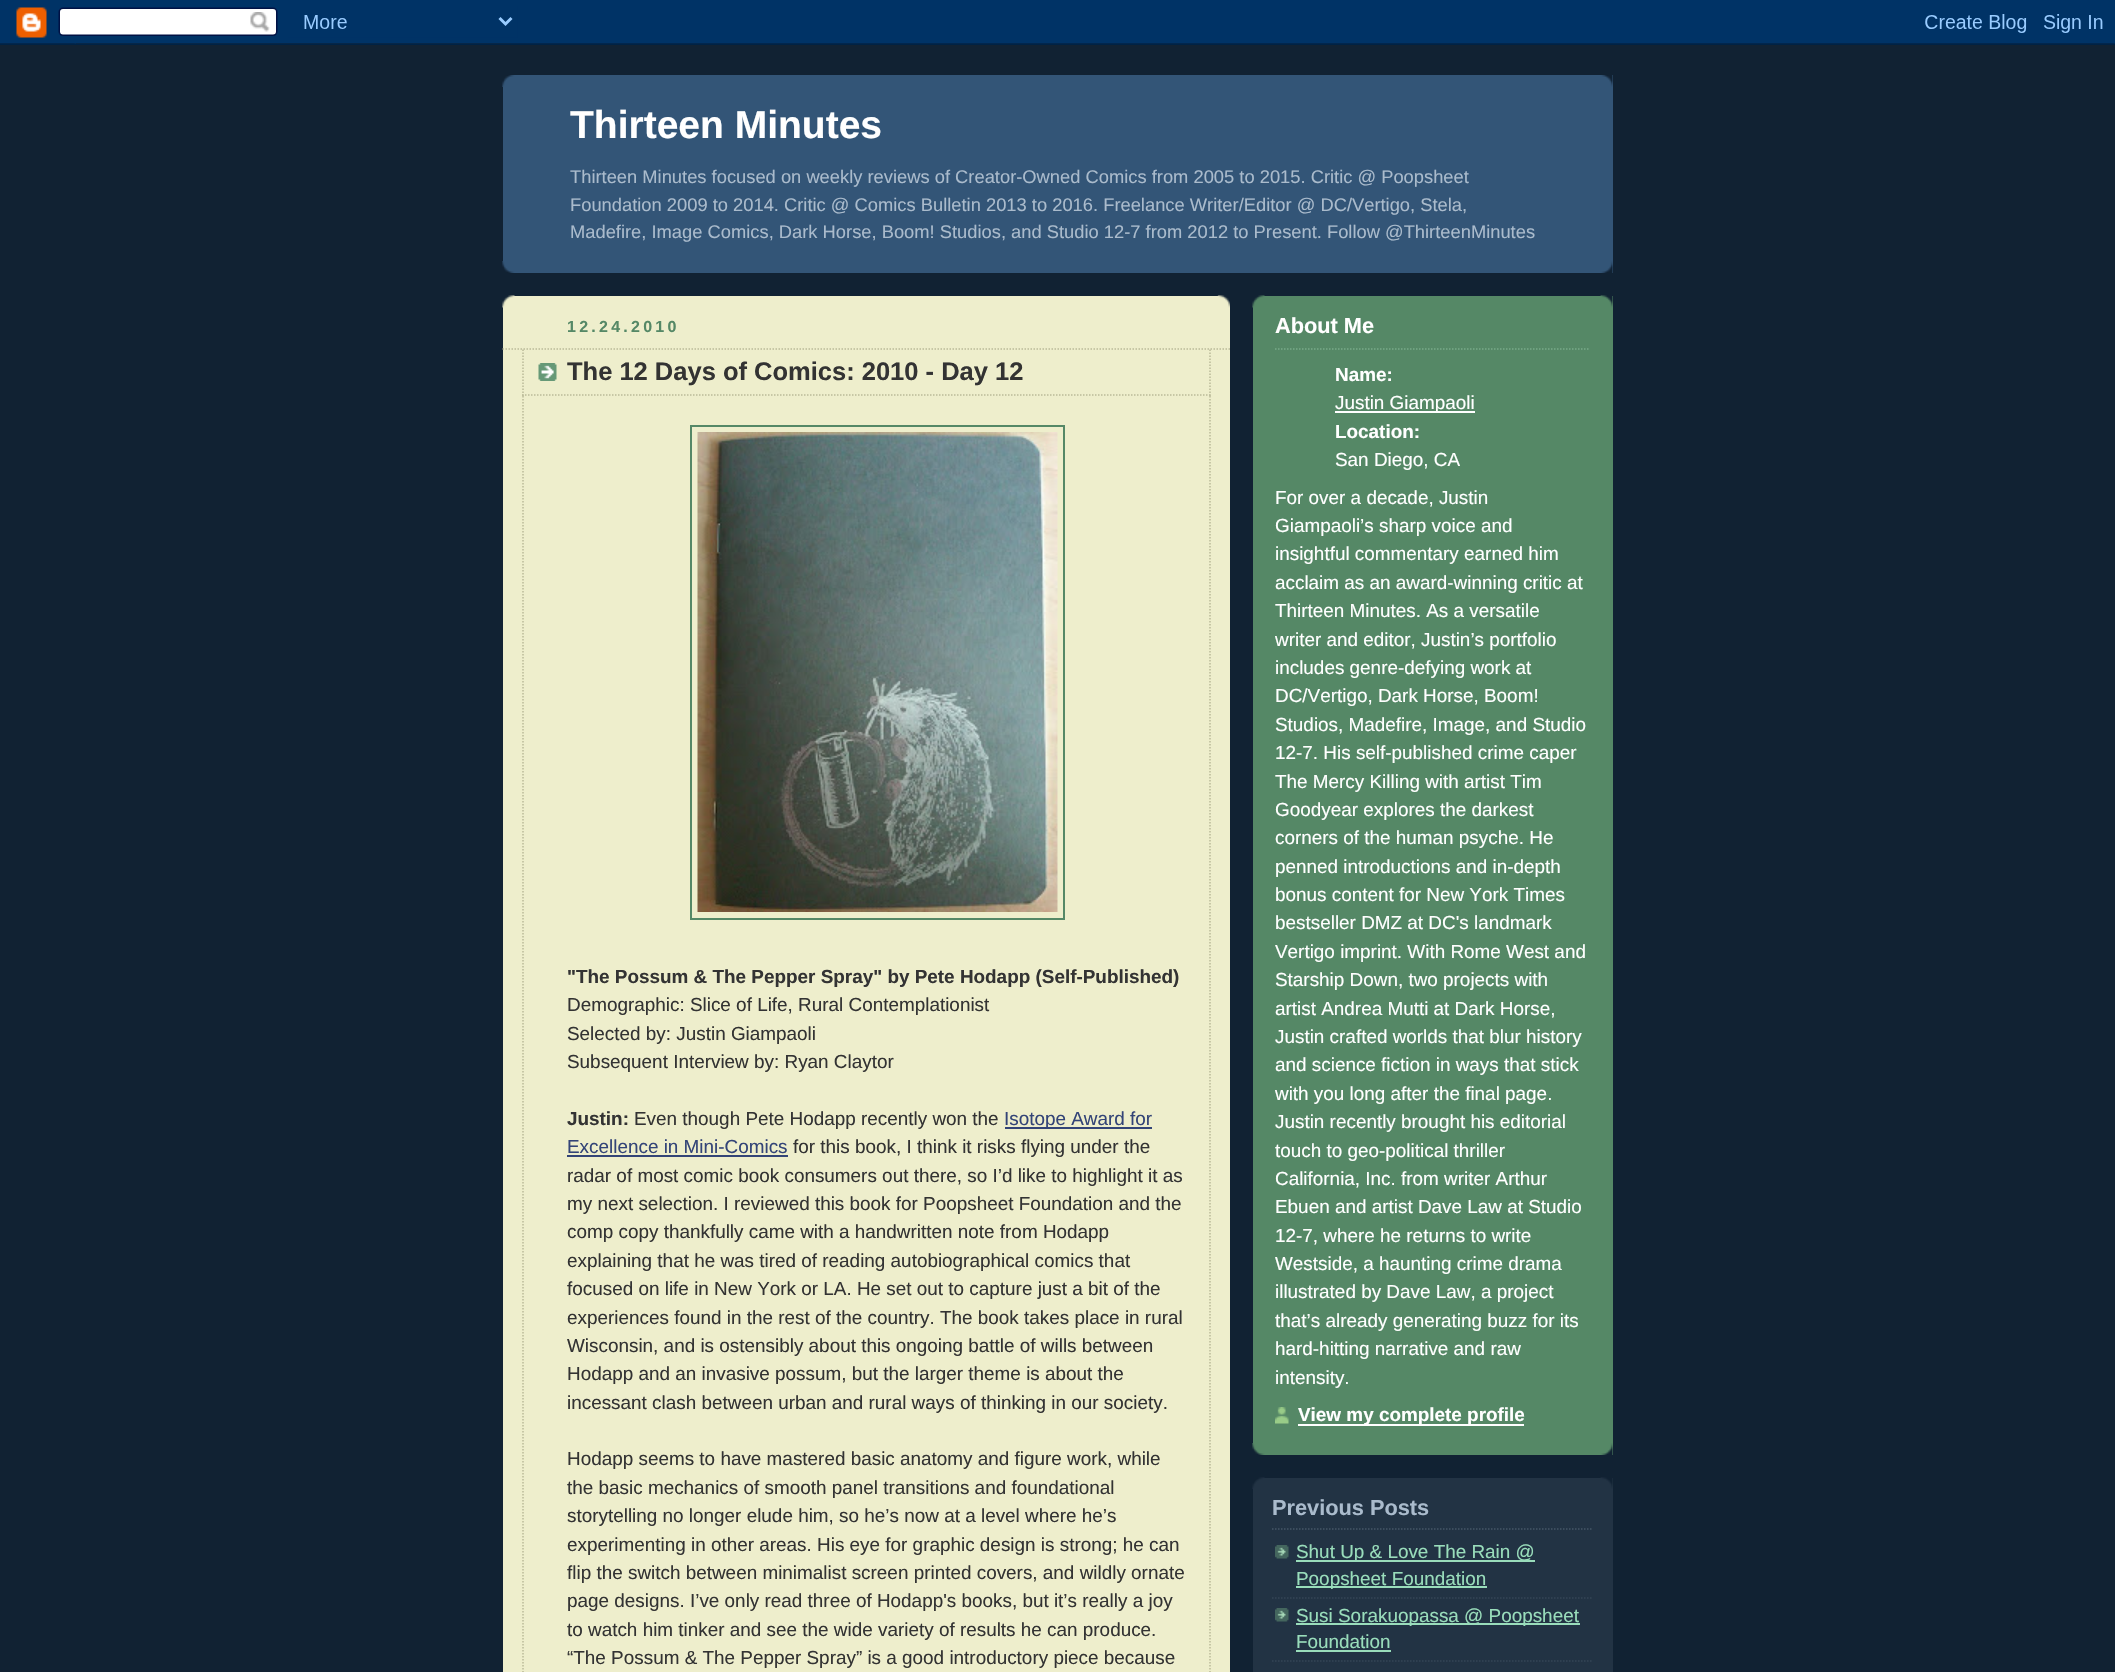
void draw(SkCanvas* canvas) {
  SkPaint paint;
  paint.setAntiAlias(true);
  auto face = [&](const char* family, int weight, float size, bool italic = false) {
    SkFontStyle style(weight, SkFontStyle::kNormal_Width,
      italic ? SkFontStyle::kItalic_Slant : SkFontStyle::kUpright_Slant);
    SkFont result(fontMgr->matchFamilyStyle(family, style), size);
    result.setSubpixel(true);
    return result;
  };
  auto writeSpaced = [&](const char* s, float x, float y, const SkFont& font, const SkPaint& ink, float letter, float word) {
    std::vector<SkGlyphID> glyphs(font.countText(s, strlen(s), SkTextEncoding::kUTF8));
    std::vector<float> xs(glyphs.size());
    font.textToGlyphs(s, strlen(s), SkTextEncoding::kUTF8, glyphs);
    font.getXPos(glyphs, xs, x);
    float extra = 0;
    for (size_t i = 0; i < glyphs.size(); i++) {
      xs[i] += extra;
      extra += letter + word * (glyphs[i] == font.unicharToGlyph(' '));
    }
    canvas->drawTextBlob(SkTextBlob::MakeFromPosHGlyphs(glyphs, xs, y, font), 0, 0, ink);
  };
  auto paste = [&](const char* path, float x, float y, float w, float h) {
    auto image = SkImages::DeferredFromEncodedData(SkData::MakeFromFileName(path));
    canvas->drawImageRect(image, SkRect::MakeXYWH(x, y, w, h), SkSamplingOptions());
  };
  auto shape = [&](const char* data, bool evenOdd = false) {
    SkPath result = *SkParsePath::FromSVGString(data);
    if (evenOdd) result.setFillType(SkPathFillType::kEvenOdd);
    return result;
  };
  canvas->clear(0xff112233);
  paste("img/1.png", 0, 0, 2115, 45);
  paint.setColor(0xff335577);
  canvas->drawRect(SkRect::MakeXYWH(503, 75, 1110, 198), paint);
  paste("img/2.png", 502, 261, 1111, 12);
  paste("img/3.png", 502, 75, 1111, 12);
  paint.setColor(0xffeeeecc);
  canvas->drawRect(SkRect::MakeXYWH(503, 296, 727, 1376), paint);
  paste("img/4.png", 502, 295, 728, 13);
  paint.setStroke(true);
  paint.setStrokeWidth(1.5f);
  paint.setColor(0xffbbbb99);
  paint.setPathEffect(SkDashPathEffect::Make({{1.5f, 1.5f}}, 0));
  canvas->drawPath(shape("M502.5 349H1230"), paint);
  paint.setPathEffect(nullptr);
  paste("img/5.png", 538, 363, 19, 18);
  paint.setPathEffect(SkDashPathEffect::Make({{1.5f, 1.5f}}, 0));
  canvas->drawPath(shape("M1210 349.5V396"), paint);
  paint.setPathEffect(nullptr);
  paint.setPathEffect(SkDashPathEffect::Make({{1.5f, 1.5f}}, 0));
  canvas->drawPath(shape("M522 395H1210.5"), paint);
  paint.setPathEffect(nullptr);
  paint.setPathEffect(SkDashPathEffect::Make({{1.5f, 1.5f}}, 0));
  canvas->drawPath(shape("M523 349.5V396"), paint);
  paint.setPathEffect(nullptr);
  paint.setPathEffect(SkDashPathEffect::Make({{1.5f, 1.5f}}, 0));
  canvas->drawPath(shape("M1210 396V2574"), paint);
  paint.setPathEffect(nullptr);
  paint.setPathEffect(SkDashPathEffect::Make({{1.5f, 1.5f}}, 0));
  canvas->drawPath(shape("M523 396V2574"), paint);
  paint.setPathEffect(nullptr);
  paint.setStrokeWidth(2);
  paint.setColor(0xff558866);
  canvas->drawRect(SkRect::MakeXYWH(691, 426, 373, 493), paint);
  paste("img/6.png", 697, 432, 361, 480);
  paint.setStroke(false);
  {
    const struct { float x, y, w, h; SkColor color; } items[] = {
      {1005, 1127, 147, 2, 0xff334477},
      {567, 1155, 221, 2, 0xff334477},
      {1253, 296, 360, 1159, 0xff558866},
    };
    for (auto [x, y, w, h, color] : items) {
      paint.setColor(color);
      canvas->drawRect(SkRect::MakeXYWH(x, y, w, h), paint);
    }
  }
  paste("img/7.png", 1252, 1443, 361, 12);
  paste("img/8.png", 1252, 295, 361, 13);
  paint.setStroke(true);
  paint.setStrokeWidth(1.5f);
  paint.setColor(0xff77aa88);
  paint.setPathEffect(SkDashPathEffect::Make({{1.5f, 1.5f}}, 0));
  canvas->drawPath(shape("M1275 349H1590"), paint);
  paint.setPathEffect(nullptr);
  paint.setStroke(false);
  paint.setColor(0xffffffff);
  canvas->drawRect(SkRect::MakeXYWH(1335, 411, 140, 2), paint);
  paste("img/9.png", 1275, 1407, 14, 17);
  canvas->drawRect(SkRect::MakeXYWH(1298, 1424, 226, 2), paint);
  paint.setColor(0xff223344);
  canvas->drawRect(SkRect::MakeXYWH(1253, 1478, 360, 194), paint);
  paste("img/10.png", 1252, 1477, 361, 12);
  paint.setStroke(true);
  paint.setColor(0xff445566);
  paint.setPathEffect(SkDashPathEffect::Make({{1.5f, 1.5f}}, 0));
  canvas->drawPath(shape("M1272 1529H1593"), paint);
  paint.setPathEffect(nullptr);
  paste("img/11.png", 1275, 1545, 14, 14);
  paint.setColor(0xff334455);
  paint.setPathEffect(SkDashPathEffect::Make({{1.5f, 1.5f}}, 0));
  canvas->drawPath(shape("M1272 1598H1593"), paint);
  paint.setPathEffect(nullptr);
  paint.setStroke(false);
  paint.setColor(0xff99ddbb);
  canvas->drawRect(SkRect::MakeXYWH(1296, 1560, 239, 2), paint);
  canvas->drawRect(SkRect::MakeXYWH(1296, 1586, 191, 2), paint);
  paste("img/11.png", 1275, 1608, 14, 14);
  paint.setStroke(true);
  paint.setColor(0xff334455);
  paint.setPathEffect(SkDashPathEffect::Make({{1.5f, 1.5f}}, 0));
  canvas->drawPath(shape("M1272 1661H1593"), paint);
  paint.setPathEffect(nullptr);
  paint.setStroke(false);
  paint.setColor(0xff99ddbb);
  canvas->drawRect(SkRect::MakeXYWH(1296, 1623, 284, 2), paint);
  canvas->drawRect(SkRect::MakeXYWH(1296, 1650, 95, 2), paint);
  auto f0 = face("Liberation Sans", 700, 39);
  paint.setColor(0xffffffff);
  canvas->drawString("Thirteen Minutes", 570, 138, f0, paint);
  auto f1 = face("Liberation Sans", 400, 18.33f);
  paint.setColor(0xffaabbcc);
  {
    const struct { const char* s; float x, y; } items[] = {
      {"Thirteen Minutes focused on weekly reviews of Creator-Owned Comics from 2005 to 2015. Critic @ Poopsheet", 570, 183},
      {"Foundation 2009 to 2014. Critic @ Comics Bulletin 2013 to 2016. Freelance Writer/Editor @ DC/Vertigo, Stela,", 570, 211},
      {"Madefire, Image Comics, Dark Horse, Boom! Studios, and Studio 12-7 from 2012 to Present. Follow @ThirteenMinutes", 570, 238},
    };
    for (auto [s, x, y] : items) {
      canvas->drawString(s, x, y, f1, paint);
    }
  }
  auto f2 = face("Liberation Sans", 700, 16);
  paint.setColor(0xff558866);
  writeSpaced("12.24.2010", 567, 332, f2, paint, 3.25f, 0);
  auto f3 = face("Liberation Sans", 700, 25.5f);
  paint.setColor(0xff333333);
  canvas->drawString("The 12 Days of Comics: 2010 - Day 12", 567, 380, f3, paint);
  auto f4 = face("Liberation Sans", 700, 18.9f);
  canvas->drawString("\"The Possum & The Pepper Spray\" by Pete Hodapp (Self-Published)", 567, 983, f4, paint);
  auto f5 = face("Liberation Sans", 400, 18.9f);
  {
    const struct { const char* s; float x, y; } items[] = {
      {"Demographic: Slice of Life, Rural Contemplationist", 567, 1011},
      {"Selected by: Justin Giampaoli", 567, 1040},
      {"Subsequent Interview by: Ryan Claytor", 567, 1068},
    };
    for (auto [s, x, y] : items) {
      canvas->drawString(s, x, y, f5, paint);
    }
  }
  canvas->drawString("Justin:", 567, 1125, f4, paint);
  canvas->drawString("Even though Pete Hodapp recently won the", 634, 1125, f5, paint);
  paint.setColor(0xff334477);
  canvas->drawString("Isotope Award for", 1004, 1125, f5, paint);
  canvas->drawString("Excellence in Mini-Comics", 567, 1153, f5, paint);
  paint.setColor(0xff333333);
  {
    const struct { const char* s; float x, y; } items[] = {
      {"for this book, I think it risks flying under the", 793, 1153},
      {"radar of most comic book consumers out there, so I’d like to highlight it as", 567, 1182},
      {"my next selection. I reviewed this book for Poopsheet Foundation and the", 567, 1210},
      {"comp copy thankfully came with a handwritten note from Hodapp", 567, 1238},
      {"explaining that he was tired of reading autobiographical comics that", 567, 1267},
      {"focused on life in New York or LA. He set out to capture just a bit of the", 567, 1295},
      {"experiences found in the rest of the country. The book takes place in rural", 567, 1324},
      {"Wisconsin, and is ostensibly about this ongoing battle of wills between", 567, 1352},
      {"Hodapp and an invasive possum, but the larger theme is about the", 567, 1380},
      {"incessant clash between urban and rural ways of thinking in our society.", 567, 1409},
      {"Hodapp seems to have mastered basic anatomy and figure work, while", 567, 1465},
      {"the basic mechanics of smooth panel transitions and foundational", 567, 1494},
      {"storytelling no longer elude him, so he’s now at a level where he’s", 567, 1522},
      {"experimenting in other areas. His eye for graphic design is strong; he can", 567, 1551},
      {"flip the switch between minimalist screen printed covers, and wildly ornate", 567, 1579},
      {"page designs. I’ve only read three of Hodapp's books, but it’s really a joy", 567, 1607},
      {"to watch him tinker and see the wide variety of results he can produce.", 567, 1636},
      {"“The Possum & The Pepper Spray” is a good introductory piece because", 567, 1664},
    };
    for (auto [s, x, y] : items) {
      canvas->drawString(s, x, y, f5, paint);
    }
  }
  auto f6 = face("Liberation Sans", 700, 21.75f);
  paint.setColor(0xffffffff);
  canvas->drawString("About Me", 1275, 333, f6, paint);
  canvas->drawString("Name:", 1335, 381, f4, paint);
  canvas->drawString("Justin Giampaoli", 1335, 409, f5, paint);
  canvas->drawString("Location:", 1335, 438, f4, paint);
  {
    const struct { const char* s; float x, y; } items[] = {
      {"San Diego, CA", 1335, 466},
      {"For over a decade, Justin", 1275, 504},
      {"Giampaoli’s sharp voice and", 1275, 532},
      {"insightful commentary earned him", 1275, 560},
      {"acclaim as an award-winning critic at", 1275, 589},
      {"Thirteen Minutes. As a versatile", 1275, 617},
      {"writer and editor, Justin’s portfolio", 1275, 646},
      {"includes genre-defying work at", 1275, 674},
      {"DC/Vertigo, Dark Horse, Boom!", 1275, 702},
      {"Studios, Madefire, Image, and Studio", 1275, 731},
      {"12-7. His self-published crime caper", 1275, 759},
      {"The Mercy Killing with artist Tim", 1275, 788},
      {"Goodyear explores the darkest", 1275, 816},
      {"corners of the human psyche. He", 1275, 844},
      {"penned introductions and in-depth", 1275, 873},
      {"bonus content for New York Times", 1275, 901},
      {"bestseller DMZ at DC's landmark", 1275, 929},
      {"Vertigo imprint. With Rome West and", 1275, 958},
      {"Starship Down, two projects with", 1275, 986},
      {"artist Andrea Mutti at Dark Horse,", 1275, 1015},
      {"Justin crafted worlds that blur history", 1275, 1043},
      {"and science fiction in ways that stick", 1275, 1071},
      {"with you long after the final page.", 1275, 1100},
      {"Justin recently brought his editorial", 1275, 1128},
      {"touch to geo-political thriller", 1275, 1157},
      {"California, Inc. from writer Arthur", 1275, 1185},
      {"Ebuen and artist Dave Law at Studio", 1275, 1213},
      {"12-7, where he returns to write", 1275, 1242},
      {"Westside, a haunting crime drama", 1275, 1270},
      {"illustrated by Dave Law, a project", 1275, 1298},
      {"that’s already generating buzz for its", 1275, 1327},
      {"hard-hitting narrative and raw", 1275, 1355},
      {"intensity.", 1275, 1384},
    };
    for (auto [s, x, y] : items) {
      canvas->drawString(s, x, y, f5, paint);
    }
  }
  canvas->drawString("View my complete profile", 1298, 1421, f4, paint);
  paint.setColor(0xffaabbcc);
  canvas->drawString("Previous Posts", 1272, 1515, f6, paint);
  paint.setColor(0xff99ddbb);
  {
    const struct { const char* s; float x, y; } items[] = {
      {"Shut Up & Love The Rain @", 1296, 1558},
      {"Poopsheet Foundation", 1296, 1585},
      {"Susi Sorakuopassa @ Poopsheet", 1296, 1622},
      {"Foundation", 1296, 1648},
    };
    for (auto [s, x, y] : items) {
      canvas->drawString(s, x, y, f5, paint);
    }
  }
}
